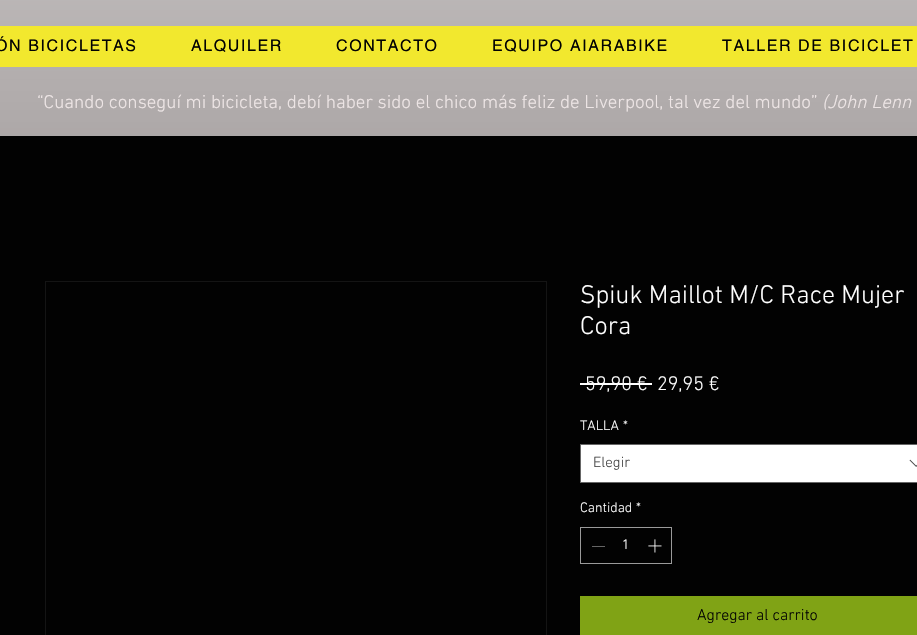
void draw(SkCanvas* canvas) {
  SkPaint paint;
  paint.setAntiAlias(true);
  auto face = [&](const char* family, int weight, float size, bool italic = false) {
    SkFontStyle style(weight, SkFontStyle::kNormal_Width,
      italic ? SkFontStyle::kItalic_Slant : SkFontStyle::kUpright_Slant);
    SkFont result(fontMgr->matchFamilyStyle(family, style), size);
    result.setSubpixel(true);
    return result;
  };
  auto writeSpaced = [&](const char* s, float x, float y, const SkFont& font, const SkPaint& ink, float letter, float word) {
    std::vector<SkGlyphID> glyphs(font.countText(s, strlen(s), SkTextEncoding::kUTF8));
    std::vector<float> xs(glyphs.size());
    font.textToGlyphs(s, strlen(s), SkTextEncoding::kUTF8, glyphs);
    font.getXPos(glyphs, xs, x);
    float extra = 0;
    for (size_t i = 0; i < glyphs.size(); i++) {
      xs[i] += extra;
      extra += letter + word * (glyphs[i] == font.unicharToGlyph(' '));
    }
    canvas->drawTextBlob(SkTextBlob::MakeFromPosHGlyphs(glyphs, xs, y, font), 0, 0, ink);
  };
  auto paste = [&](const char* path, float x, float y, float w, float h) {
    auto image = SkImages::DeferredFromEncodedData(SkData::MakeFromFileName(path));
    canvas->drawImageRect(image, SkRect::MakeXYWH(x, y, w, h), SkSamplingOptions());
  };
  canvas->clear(0xff020202);
  paint.setColor(0xffa29c9c);
  canvas->drawRect(SkRect::MakeXYWH(0, 0, 917, 136), paint);
  paste("img/1.png", 0, 0, 917, 136);
  paint.setColor(0xfff2e82e);
  canvas->drawRect(SkRect::MakeXYWH(0, 26, 917, 41), paint);
  paint.setStroke(true);
  paint.setStrokeWidth(1);
  paint.setColor(0xff141414);
  canvas->drawRect(SkRect::MakeXYWH(45.5f, 281.5f, 501, 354), paint);
  paint.setStroke(false);
  paint.setColor(0xffffffff);
  canvas->drawRect(SkRect::MakeXYWH(580, 383, 72, 2), paint);
  canvas->drawRect(SkRect::MakeXYWH(580.5f, 444.5f, 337, 38), paint);
  paint.setStroke(true);
  paint.setColor(0xff666666);
  canvas->drawRect(SkRect::MakeXYWH(580.5f, 444.5f, 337, 38), paint);
  paste("img/2.png", 909, 459, 8, 8);
  paint.setColor(0xff9a9a9a);
  canvas->drawRect(SkRect::MakeXYWH(580.5f, 527.5f, 91, 36), paint);
  paint.setStroke(false);
  paint.setColor(0xff656565);
  canvas->drawRect(SkRect::MakeXYWH(592, 546, 13, 1), paint);
  paste("img/3.png", 648, 539, 14, 14);
  paint.setColor(0xff80a315);
  canvas->drawRect(SkRect::MakeXYWH(580, 596, 337, 39), paint);
  auto f0 = face("helvetica", 400, 16);
  paint.setColor(0xff020202);
  {
    const struct { const char* s; float x, y; } items[] = {
      {"ÓN BICICLETAS", -5, 51},
      {"ALQUILER", 191, 51},
      {"CONTACTO", 336, 51},
      {"EQUIPO AIARABIKE", 492, 51},
      {"TALLER DE BICICLET", 722, 51},
    };
    for (auto [s, x, y] : items) {
      writeSpaced(s, x, y, f0, paint, 1.6f, 0);
    }
  }
  auto f1 = face("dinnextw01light", 300, 19);
  paint.setColor(0xffeee6e6);
  canvas->drawString("“Cuando conseguí mi bicicleta, debí haber sido el chico más feliz de Liverpool, tal vez del mundo”", 37, 108, f1, paint);
  auto f2 = face("dinnextw01light", 300, 19, true);
  canvas->drawString("(John Lenn", 822, 108, f2, paint);
  auto f3 = face("dinnextw01light", 300, 26);
  paint.setColor(0xffffffff);
  canvas->drawString("Spiuk Maillot M/C Race Mujer", 580, 303, f3, paint);
  canvas->drawString("Cora", 580, 334, f3, paint);
  auto f4 = face("dinnextw01light", 300, 20);
  canvas->drawString("59,90 €", 585, 390, f4, paint);
  canvas->drawString("29,95 €", 657, 390, f4, paint);
  auto f5 = face("dinnextw01light", 300, 14);
  canvas->drawString("TALLA", 580, 430, f5, paint);
  canvas->drawString("*", 623, 430, f5, paint);
  auto f6 = face("dinnextw01light", 300, 15);
  paint.setColor(0xff444444);
  canvas->drawString("Elegir", 593, 467, f6, paint);
  paint.setColor(0xffffffff);
  {
    const struct { const char* s; float x, y; } items[] = {
      {"Cantidad", 580, 512},
      {"*", 636, 512},
      {"1", 622, 549},
    };
    for (auto [s, x, y] : items) {
      canvas->drawString(s, x, y, f5, paint);
    }
  }
  auto f7 = face("dinnextw01light", 300, 16);
  paint.setColor(0xff020202);
  canvas->drawString("Agregar al carrito", 697, 620, f7, paint);
}
